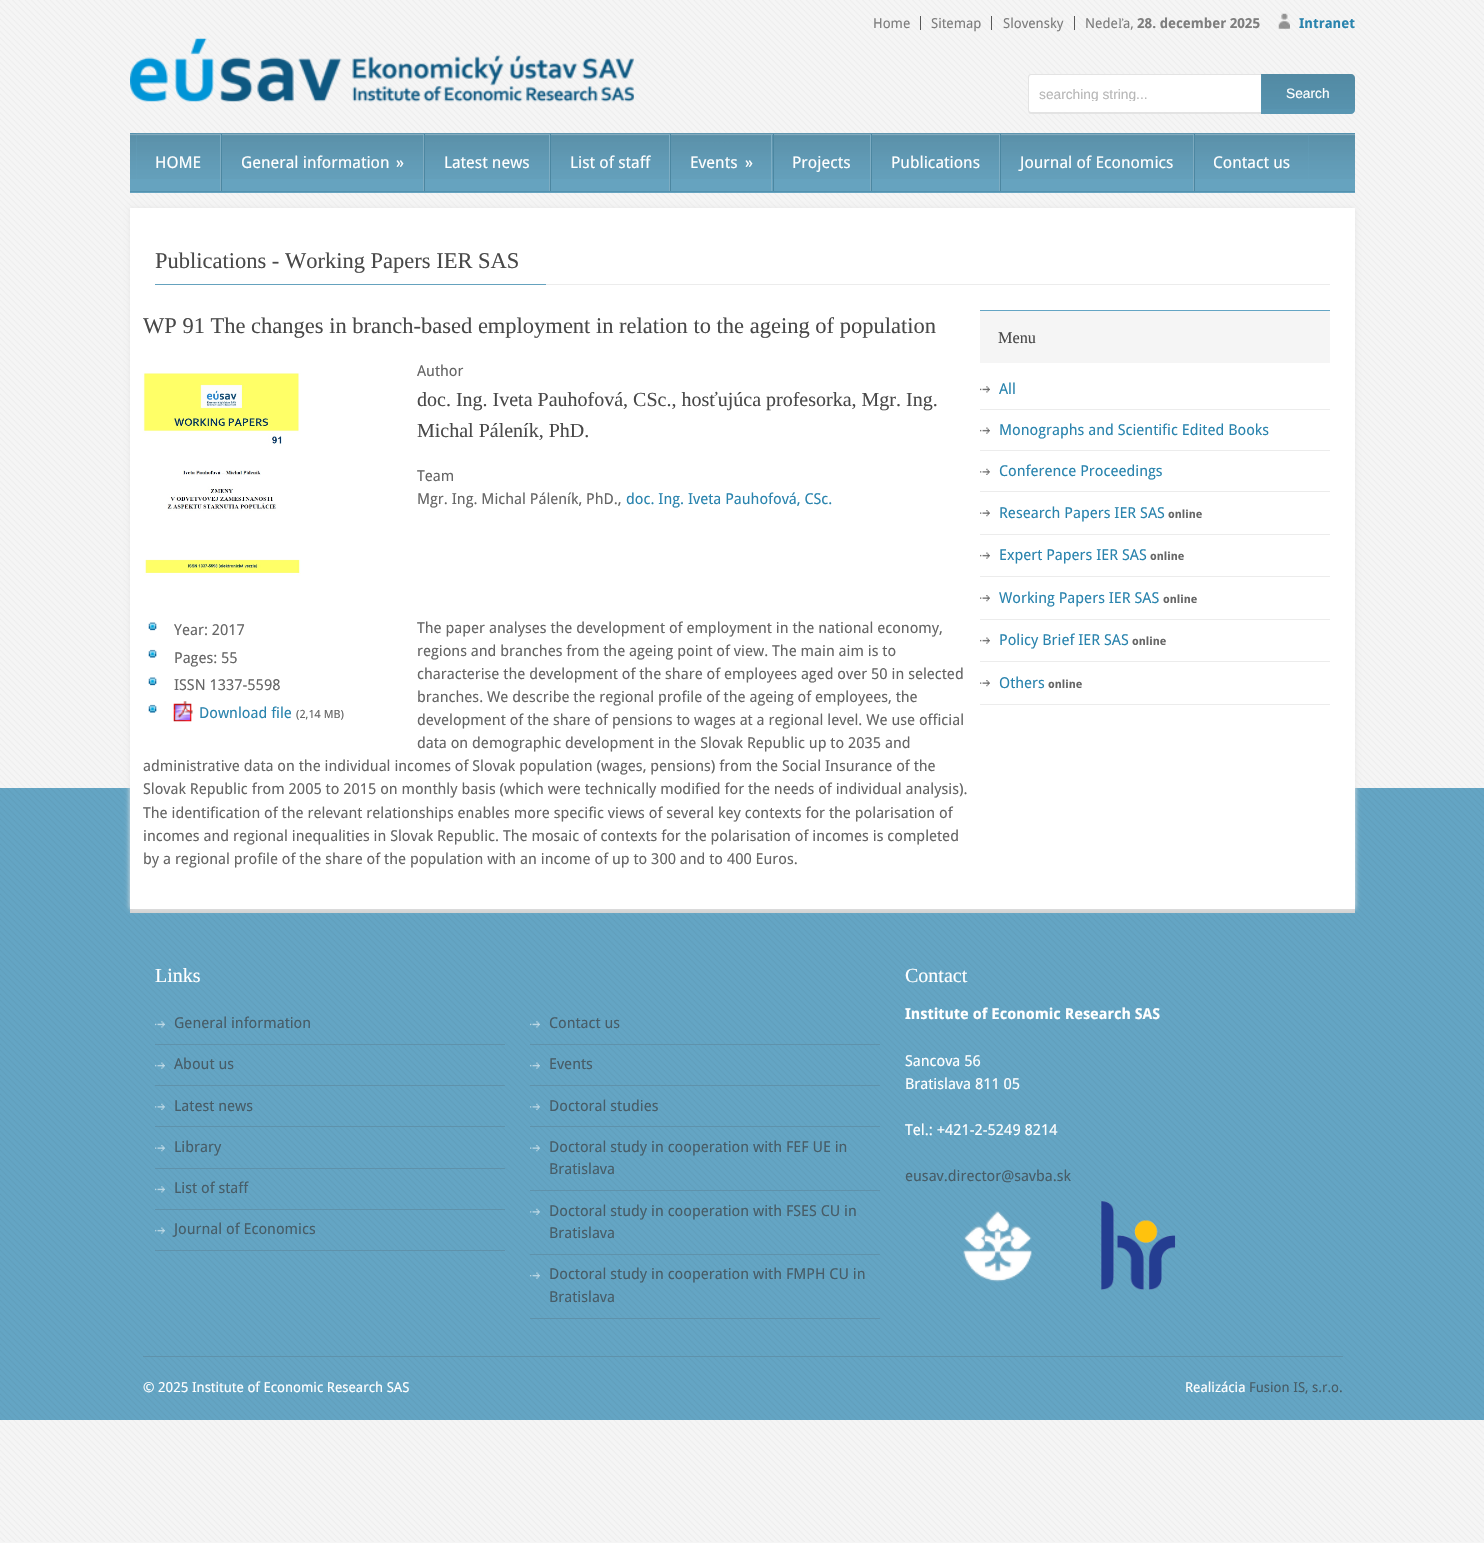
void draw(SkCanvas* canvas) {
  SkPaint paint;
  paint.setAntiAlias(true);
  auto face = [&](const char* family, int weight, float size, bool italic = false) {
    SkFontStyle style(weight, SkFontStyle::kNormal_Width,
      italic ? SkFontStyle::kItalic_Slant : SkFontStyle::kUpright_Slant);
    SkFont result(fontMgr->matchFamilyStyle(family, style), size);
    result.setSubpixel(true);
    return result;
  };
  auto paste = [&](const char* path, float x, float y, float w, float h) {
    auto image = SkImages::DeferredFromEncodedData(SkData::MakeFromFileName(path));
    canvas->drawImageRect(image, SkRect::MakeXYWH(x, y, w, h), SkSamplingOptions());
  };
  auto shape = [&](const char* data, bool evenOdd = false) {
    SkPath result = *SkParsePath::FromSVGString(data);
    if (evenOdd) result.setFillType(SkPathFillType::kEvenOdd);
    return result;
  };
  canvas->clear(0xfff5f5f5);
  paste("img/1.png", 0, 0, 1484, 1542);
  {
    const struct { float x, y, w, h; SkColor color; } items[] = {
      {920, 16, 1, 14, 0xff585858},
      {991, 16, 1, 14, 0xff585858},
      {1074, 16, 1, 14, 0xff585858},
    };
    for (auto [x, y, w, h, color] : items) {
      paint.setColor(color);
      canvas->drawRect(SkRect::MakeXYWH(x, y, w, h), paint);
    }
  }
  paste("img/2.png", 1278, 13, 12, 16);
  paste("img/3.png", 130, 38, 504, 64);
  paint.setColor(0xffffffff);
  canvas->drawPath(shape("M1032 74H1261V114H1032C1030 114 1028 112 1028 110V78C1028 76 1030 74 1032 74Z"), paint);
  paint.setColor(0xffe3e3e3);
  canvas->drawPath(shape("M1031 74H1261V114H1031C1029 114 1028 112 1028 110V78C1028 75 1029 74 1031 74ZM1031 75H1261V112H1031C1030 112 1029 111 1029 110V78C1029 76 1030 75 1031 75Z", true), paint);
  paint.setColor(0xff5996b2);
  canvas->drawPath(shape("M1261 74H1351C1353 74 1355 76 1355 78V110C1355 112 1353 114 1351 114H1261Z"), paint);
  paste("img/4.png", 1261, 74, 94, 35);
  paint.setColor(0xff66a3bf);
  canvas->drawRect(SkRect::MakeXYWH(130, 134, 1225, 59), paint);
  paste("img/5.png", 130, 134, 1225, 45);
  {
    const struct { float x, y, w, h; SkColor color; } items[] = {
      {130, 133, 1225, 1, 0xff5391ae},
      {130, 191, 1225, 1, 0xff5391ae},
      {136, 134, 84, 45, 0xff66a3bf},
    };
    for (auto [x, y, w, h, color] : items) {
      paint.setColor(color);
      canvas->drawRect(SkRect::MakeXYWH(x, y, w, h), paint);
    }
  }
  paste("img/6.png", 136, 133, 86, 46);
  paint.setColor(0xff7eadc3);
  canvas->drawRect(SkRect::MakeXYWH(220, 134, 1, 57), paint);
  paint.setColor(0xff66a3bf);
  canvas->drawRect(SkRect::MakeXYWH(222, 134, 201, 45), paint);
  paste("img/7.png", 221, 133, 203, 46);
  {
    const struct { float x, y, w, h; SkColor color; } items[] = {
      {423, 134, 1, 57, 0xff7eadc3},
      {221, 134, 1, 57, 0xff4c87a1},
      {425, 134, 124, 45, 0xff66a3bf},
    };
    for (auto [x, y, w, h, color] : items) {
      paint.setColor(color);
      canvas->drawRect(SkRect::MakeXYWH(x, y, w, h), paint);
    }
  }
  paste("img/8.png", 423, 133, 127, 46);
  {
    const struct { float x, y, w, h; SkColor color; } items[] = {
      {549, 134, 1, 57, 0xff7eadc3},
      {424, 134, 1, 57, 0xff4c87a1},
      {551, 134, 118, 45, 0xff66a3bf},
    };
    for (auto [x, y, w, h, color] : items) {
      paint.setColor(color);
      canvas->drawRect(SkRect::MakeXYWH(x, y, w, h), paint);
    }
  }
  paste("img/9.png", 550, 133, 120, 46);
  {
    const struct { float x, y, w, h; SkColor color; } items[] = {
      {669, 134, 1, 57, 0xff7eadc3},
      {550, 134, 1, 57, 0xff4c87a1},
      {671, 134, 102, 45, 0xff66a3bf},
    };
    for (auto [x, y, w, h, color] : items) {
      paint.setColor(color);
      canvas->drawRect(SkRect::MakeXYWH(x, y, w, h), paint);
    }
  }
  paste("img/10.png", 670, 133, 103, 46);
  {
    const struct { float x, y, w, h; SkColor color; } items[] = {
      {771, 134, 1, 57, 0xff7eadc3},
      {670, 134, 1, 57, 0xff4c87a1},
      {774, 134, 96, 45, 0xff66a3bf},
    };
    for (auto [x, y, w, h, color] : items) {
      paint.setColor(color);
      canvas->drawRect(SkRect::MakeXYWH(x, y, w, h), paint);
    }
  }
  paste("img/11.png", 772, 133, 100, 46);
  {
    const struct { float x, y, w, h; SkColor color; } items[] = {
      {870, 134, 1, 57, 0xff7eadc3},
      {773, 134, 1, 57, 0xff4c87a1},
      {872, 134, 127, 45, 0xff66a3bf},
    };
    for (auto [x, y, w, h, color] : items) {
      paint.setColor(color);
      canvas->drawRect(SkRect::MakeXYWH(x, y, w, h), paint);
    }
  }
  paste("img/12.png", 871, 133, 129, 46);
  {
    const struct { float x, y, w, h; SkColor color; } items[] = {
      {999, 134, 1, 57, 0xff7eadc3},
      {871, 134, 1, 57, 0xff4c87a1},
      {1001, 134, 192, 45, 0xff66a3bf},
    };
    for (auto [x, y, w, h, color] : items) {
      paint.setColor(color);
      canvas->drawRect(SkRect::MakeXYWH(x, y, w, h), paint);
    }
  }
  paste("img/13.png", 1000, 133, 194, 46);
  {
    const struct { float x, y, w, h; SkColor color; } items[] = {
      {1193, 134, 1, 57, 0xff7eadc3},
      {1000, 134, 1, 57, 0xff4c87a1},
      {1195, 134, 114, 45, 0xff66a3bf},
    };
    for (auto [x, y, w, h, color] : items) {
      paint.setColor(color);
      canvas->drawRect(SkRect::MakeXYWH(x, y, w, h), paint);
    }
  }
  paste("img/14.png", 1193, 133, 116, 46);
  paint.setColor(0xff4c87a1);
  canvas->drawRect(SkRect::MakeXYWH(1194, 134, 1, 57), paint);
  paint.setColor(0xff64a5c4);
  canvas->drawRect(SkRect::MakeXYWH(0, 788, 1484, 632), paint);
  paste("img/23.png", 0, 788, 1484, 632);
  paint.setColor(0xffd2d2d2);
  canvas->drawRect(SkRect::MakeXYWH(130, 909, 1225, 4), paint);
  paint.setColor(0xffe5e5e5);
  paint.setMaskFilter(SkMaskFilter::MakeBlur(kNormal_SkBlurStyle, 2.5f));
  canvas->drawRect(SkRect::MakeXYWH(130, 208, 1225, 701), paint);
  paint.setMaskFilter(nullptr);
  {
    const struct { float x, y, w, h; SkColor color; } items[] = {
      {130, 208, 1225, 701, 0xffffffff},
      {155, 284, 391, 1, 0xff65a2be},
      {546, 284, 784, 1, 0xffececec},
    };
    for (auto [x, y, w, h, color] : items) {
      paint.setColor(color);
      canvas->drawRect(SkRect::MakeXYWH(x, y, w, h), paint);
    }
  }
  paste("img/15.png", 142, 373, 159, 203);
  paste("img/16.png", 148, 622, 9, 9);
  paste("img/17.png", 148, 649, 9, 9);
  paste("img/16.png", 148, 677, 9, 9);
  paste("img/17.png", 148, 704, 9, 9);
  paste("img/18.png", 173, 701, 20, 21);
  paint.setColor(0xfff5f5f5);
  canvas->drawRect(SkRect::MakeXYWH(980, 311, 350, 52), paint);
  paint.setColor(0xff64a5c4);
  canvas->drawRect(SkRect::MakeXYWH(980, 310, 350, 1), paint);
  paste("img/19.png", 980, 386, 10, 7);
  paint.setColor(0xffececec);
  canvas->drawRect(SkRect::MakeXYWH(980, 409, 350, 1), paint);
  paste("img/20.png", 980, 427, 10, 7);
  canvas->drawRect(SkRect::MakeXYWH(980, 450, 350, 1), paint);
  paste("img/21.png", 980, 468, 10, 7);
  canvas->drawRect(SkRect::MakeXYWH(980, 491, 350, 1), paint);
  paste("img/22.png", 980, 510, 10, 7);
  canvas->drawRect(SkRect::MakeXYWH(980, 534, 350, 1), paint);
  paste("img/20.png", 980, 552, 10, 7);
  canvas->drawRect(SkRect::MakeXYWH(980, 576, 350, 1), paint);
  paste("img/22.png", 980, 595, 10, 7);
  canvas->drawRect(SkRect::MakeXYWH(980, 619, 350, 1), paint);
  paste("img/20.png", 980, 637, 10, 7);
  canvas->drawRect(SkRect::MakeXYWH(980, 661, 350, 1), paint);
  paste("img/22.png", 980, 680, 10, 7);
  canvas->drawRect(SkRect::MakeXYWH(980, 704, 350, 1), paint);
  paste("img/24.png", 155, 1021, 10, 7);
  paint.setColor(0xff5f92ab);
  canvas->drawRect(SkRect::MakeXYWH(155, 1044, 350, 1), paint);
  paste("img/25.png", 155, 1062, 10, 7);
  canvas->drawRect(SkRect::MakeXYWH(155, 1085, 350, 1), paint);
  paste("img/26.png", 155, 1103, 10, 7);
  canvas->drawRect(SkRect::MakeXYWH(155, 1126, 350, 1), paint);
  paste("img/27.png", 155, 1145, 10, 7);
  canvas->drawRect(SkRect::MakeXYWH(155, 1168, 350, 1), paint);
  paste("img/28.png", 155, 1186, 10, 7);
  canvas->drawRect(SkRect::MakeXYWH(155, 1209, 350, 1), paint);
  paste("img/29.png", 155, 1227, 10, 7);
  canvas->drawRect(SkRect::MakeXYWH(155, 1250, 350, 1), paint);
  paste("img/30.png", 530, 1021, 10, 7);
  canvas->drawRect(SkRect::MakeXYWH(530, 1044, 350, 1), paint);
  paste("img/31.png", 530, 1062, 10, 7);
  canvas->drawRect(SkRect::MakeXYWH(530, 1085, 350, 1), paint);
  paste("img/32.png", 530, 1103, 10, 7);
  canvas->drawRect(SkRect::MakeXYWH(530, 1126, 350, 1), paint);
  paste("img/33.png", 530, 1145, 10, 7);
  canvas->drawRect(SkRect::MakeXYWH(530, 1190, 350, 1), paint);
  paste("img/34.png", 530, 1208, 10, 7);
  canvas->drawRect(SkRect::MakeXYWH(530, 1254, 350, 1), paint);
  paste("img/35.png", 530, 1272, 10, 7);
  canvas->drawRect(SkRect::MakeXYWH(530, 1318, 350, 1), paint);
  paste("img/36.png", 963, 1210, 69, 72);
  paste("img/37.png", 1101, 1201, 75, 89);
  canvas->drawRect(SkRect::MakeXYWH(143, 1356, 1200, 1), paint);
  auto f0 = face("Droid Sans", 400, 13.75f);
  paint.setColor(0xff7e7e7e);
  {
    const struct { const char* s; float x, y; } items[] = {
      {"Home", 873, 28},
      {"Sitemap", 931, 28},
      {"Slovensky", 1003, 28},
      {"Nede", 1085, 28},
    };
    for (auto [s, x, y] : items) {
      canvas->drawString(s, x, y, f0, paint);
    }
  }
  auto f1 = face("Liberation Serif", 400, 13.75f);
  canvas->drawString("ľ", 1118, 28, f1, paint);
  canvas->drawString("a,", 1123, 28, f0, paint);
  auto f2 = face("Droid Sans", 700, 13.75f);
  canvas->drawString("28. december 2025", 1137, 28, f2, paint);
  paint.setColor(0xff2a84ae);
  canvas->drawString("Intranet", 1299, 28, f2, paint);
  canvas->save();
  canvas->clipRect(SkRect::MakeXYWH(1039, 86, 212, 15));
  auto f3 = face("Liberation Sans", 400, 13.75f);
  paint.setColor(0xffb7b7b7);
  canvas->drawString("searching string...", 1039, 99, f3, paint);
  canvas->restore();
  paint.setColor(0xffffffff);
  canvas->drawString("Search", 1286, 98, f3, paint);
  auto f4 = face("Droid Sans", 400, 16.25f);
  {
    const struct { const char* s; float x, y; } items[] = {
      {"HOME", 155, 168},
      {"General information", 241, 168},
      {"»", 396, 168},
      {"Latest news", 444, 168},
      {"List of staff", 570, 168},
      {"Events", 690, 168},
      {"»", 745, 168},
      {"Projects", 792, 168},
      {"Publications", 891, 168},
      {"Journal of Economics", 1020, 168},
      {"Contact us", 1213, 168},
    };
    for (auto [s, x, y] : items) {
      canvas->drawString(s, x, y, f4, paint);
    }
  }
  auto f5 = face("Liberation Serif", 400, 22.5f);
  paint.setColor(0xff494949);
  canvas->drawString("Publications - Working Papers IER SAS", 155, 268, f5, paint);
  canvas->drawString("WP 91 The changes in branch-based employment in relation to the ageing of population", 143, 333, f5, paint);
  auto f6 = face("Droid Sans", 400, 15);
  paint.setColor(0xff666666);
  canvas->drawString("Author", 417, 376, f6, paint);
  auto f7 = face("Liberation Serif", 400, 20);
  paint.setColor(0xff494949);
  canvas->drawString("doc. Ing. Iveta Pauhofová, CSc., hosťujúca profesorka, Mgr. Ing.", 417, 406, f7, paint);
  canvas->drawString("Michal Páleník, PhD.", 417, 437, f7, paint);
  paint.setColor(0xff666666);
  canvas->drawString("Team", 417, 481, f6, paint);
  canvas->drawString("Mgr. Ing. Michal Páleník, PhD.,", 417, 504, f6, paint);
  paint.setColor(0xff2a84ae);
  canvas->drawString("doc. Ing. Iveta Pauhofová, CSc.", 626, 504, f6, paint);
  paint.setColor(0xff666666);
  {
    const struct { const char* s; float x, y; } items[] = {
      {"The paper analyses the development of employment in the national economy,", 417, 633},
      {"regions and branches from the ageing point of view. The main aim is to", 417, 656},
      {"characterise the development of the share of employees aged over 50 in selected", 417, 679},
      {"branches. We describe the regional profile of the ageing of employees, the", 417, 702},
      {"development of the share of pensions to wages at a regional level. We use official", 417, 725},
      {"data on demographic development in the Slovak Republic up to 2035 and", 417, 748},
      {"administrative data on the individual incomes of Slovak population (wages, pensions) from the Social Insurance of the", 143, 771},
      {"Slovak Republic from 2005 to 2015 on monthly basis (which were technically modified for the needs of individual analysis).", 143, 794},
      {"The identification of the relevant relationships enables more specific views of several key contexts for the polarisation of", 143, 818},
      {"incomes and regional inequalities in Slovak Republic. The mosaic of contexts for the polarisation of incomes is completed", 143, 841},
      {"by a regional profile of the share of the population with an income of up to 300 and to 400 Euros.", 143, 864},
      {"Year: 2017", 174, 635},
      {"Pages: 55", 174, 663},
      {"ISSN 1337-5598", 174, 690},
    };
    for (auto [s, x, y] : items) {
      canvas->drawString(s, x, y, f6, paint);
    }
  }
  paint.setColor(0xff2a84ae);
  canvas->drawString("Download file", 199, 718, f6, paint);
  auto f8 = face("Droid Sans", 400, 11.25f);
  paint.setColor(0xff666666);
  canvas->drawString("(2,14 MB)", 296, 718, f8, paint);
  auto f9 = face("Liberation Serif", 400, 16.25f);
  paint.setColor(0xff494949);
  canvas->drawString("Menu", 998, 343, f9, paint);
  paint.setColor(0xff2a84ae);
  {
    const struct { const char* s; float x, y; } items[] = {
      {"All", 999, 394},
      {"Monographs and Scientific Edited Books", 999, 435},
      {"Conference Proceedings", 999, 476},
      {"Research Papers IER SAS", 999, 518},
    };
    for (auto [s, x, y] : items) {
      canvas->drawString(s, x, y, f6, paint);
    }
  }
  auto f10 = face("Droid Sans", 700, 11.25f);
  paint.setColor(0xff666666);
  canvas->drawString("online", 1168, 518, f10, paint);
  paint.setColor(0xff2a84ae);
  canvas->drawString("Expert Papers IER SAS", 999, 560, f6, paint);
  paint.setColor(0xff666666);
  canvas->drawString("online", 1150, 560, f10, paint);
  paint.setColor(0xff2a84ae);
  canvas->drawString("Working Papers IER SAS", 999, 603, f6, paint);
  paint.setColor(0xff666666);
  canvas->drawString("online", 1163, 603, f10, paint);
  paint.setColor(0xff2a84ae);
  canvas->drawString("Policy Brief IER SAS", 999, 645, f6, paint);
  paint.setColor(0xff666666);
  canvas->drawString("online", 1132, 645, f10, paint);
  paint.setColor(0xff2a84ae);
  canvas->drawString("Others", 999, 688, f6, paint);
  paint.setColor(0xff666666);
  canvas->drawString("online", 1048, 688, f10, paint);
  paint.setColor(0xffffffff);
  canvas->drawString("Links", 155, 982, f7, paint);
  paint.setColor(0xff475d68);
  {
    const struct { const char* s; float x, y; } items[] = {
      {"General information", 174, 1028},
      {"About us", 174, 1069},
      {"Latest news", 174, 1111},
      {"Library", 174, 1152},
      {"List of staff", 174, 1193},
      {"Journal of Economics", 174, 1234},
      {"Contact us", 549, 1028},
      {"Events", 549, 1069},
      {"Doctoral studies", 549, 1111},
      {"Doctoral study in cooperation with FEF UE in", 549, 1152},
      {"Bratislava", 549, 1174},
      {"Doctoral study in cooperation with FSES CU in", 549, 1216},
      {"Bratislava", 549, 1238},
      {"Doctoral study in cooperation with FMPH CU in", 549, 1279},
      {"Bratislava", 549, 1302},
    };
    for (auto [s, x, y] : items) {
      canvas->drawString(s, x, y, f6, paint);
    }
  }
  paint.setColor(0xffffffff);
  canvas->drawString("Contact", 905, 982, f7, paint);
  auto f11 = face("Droid Sans", 700, 15);
  canvas->drawString("Institute of Economic Research SAS", 905, 1019, f11, paint);
  {
    const struct { const char* s; float x, y; } items[] = {
      {"Sancova 56", 905, 1066},
      {"Bratislava 811 05", 905, 1089},
      {"Tel.: +421-2-5249 8214", 905, 1135},
    };
    for (auto [s, x, y] : items) {
      canvas->drawString(s, x, y, f6, paint);
    }
  }
  paint.setColor(0xff475d68);
  canvas->drawString("eusav.director@savba.sk", 905, 1181, f6, paint);
  paint.setColor(0xffffffff);
  canvas->drawString("© 2025 Institute of Economic Research SAS", 143, 1392, f0, paint);
  canvas->drawString("Realizácia", 1185, 1392, f0, paint);
  paint.setColor(0xff475d68);
  canvas->drawString("Fusion IS, s.r.o.", 1249, 1392, f0, paint);
}
